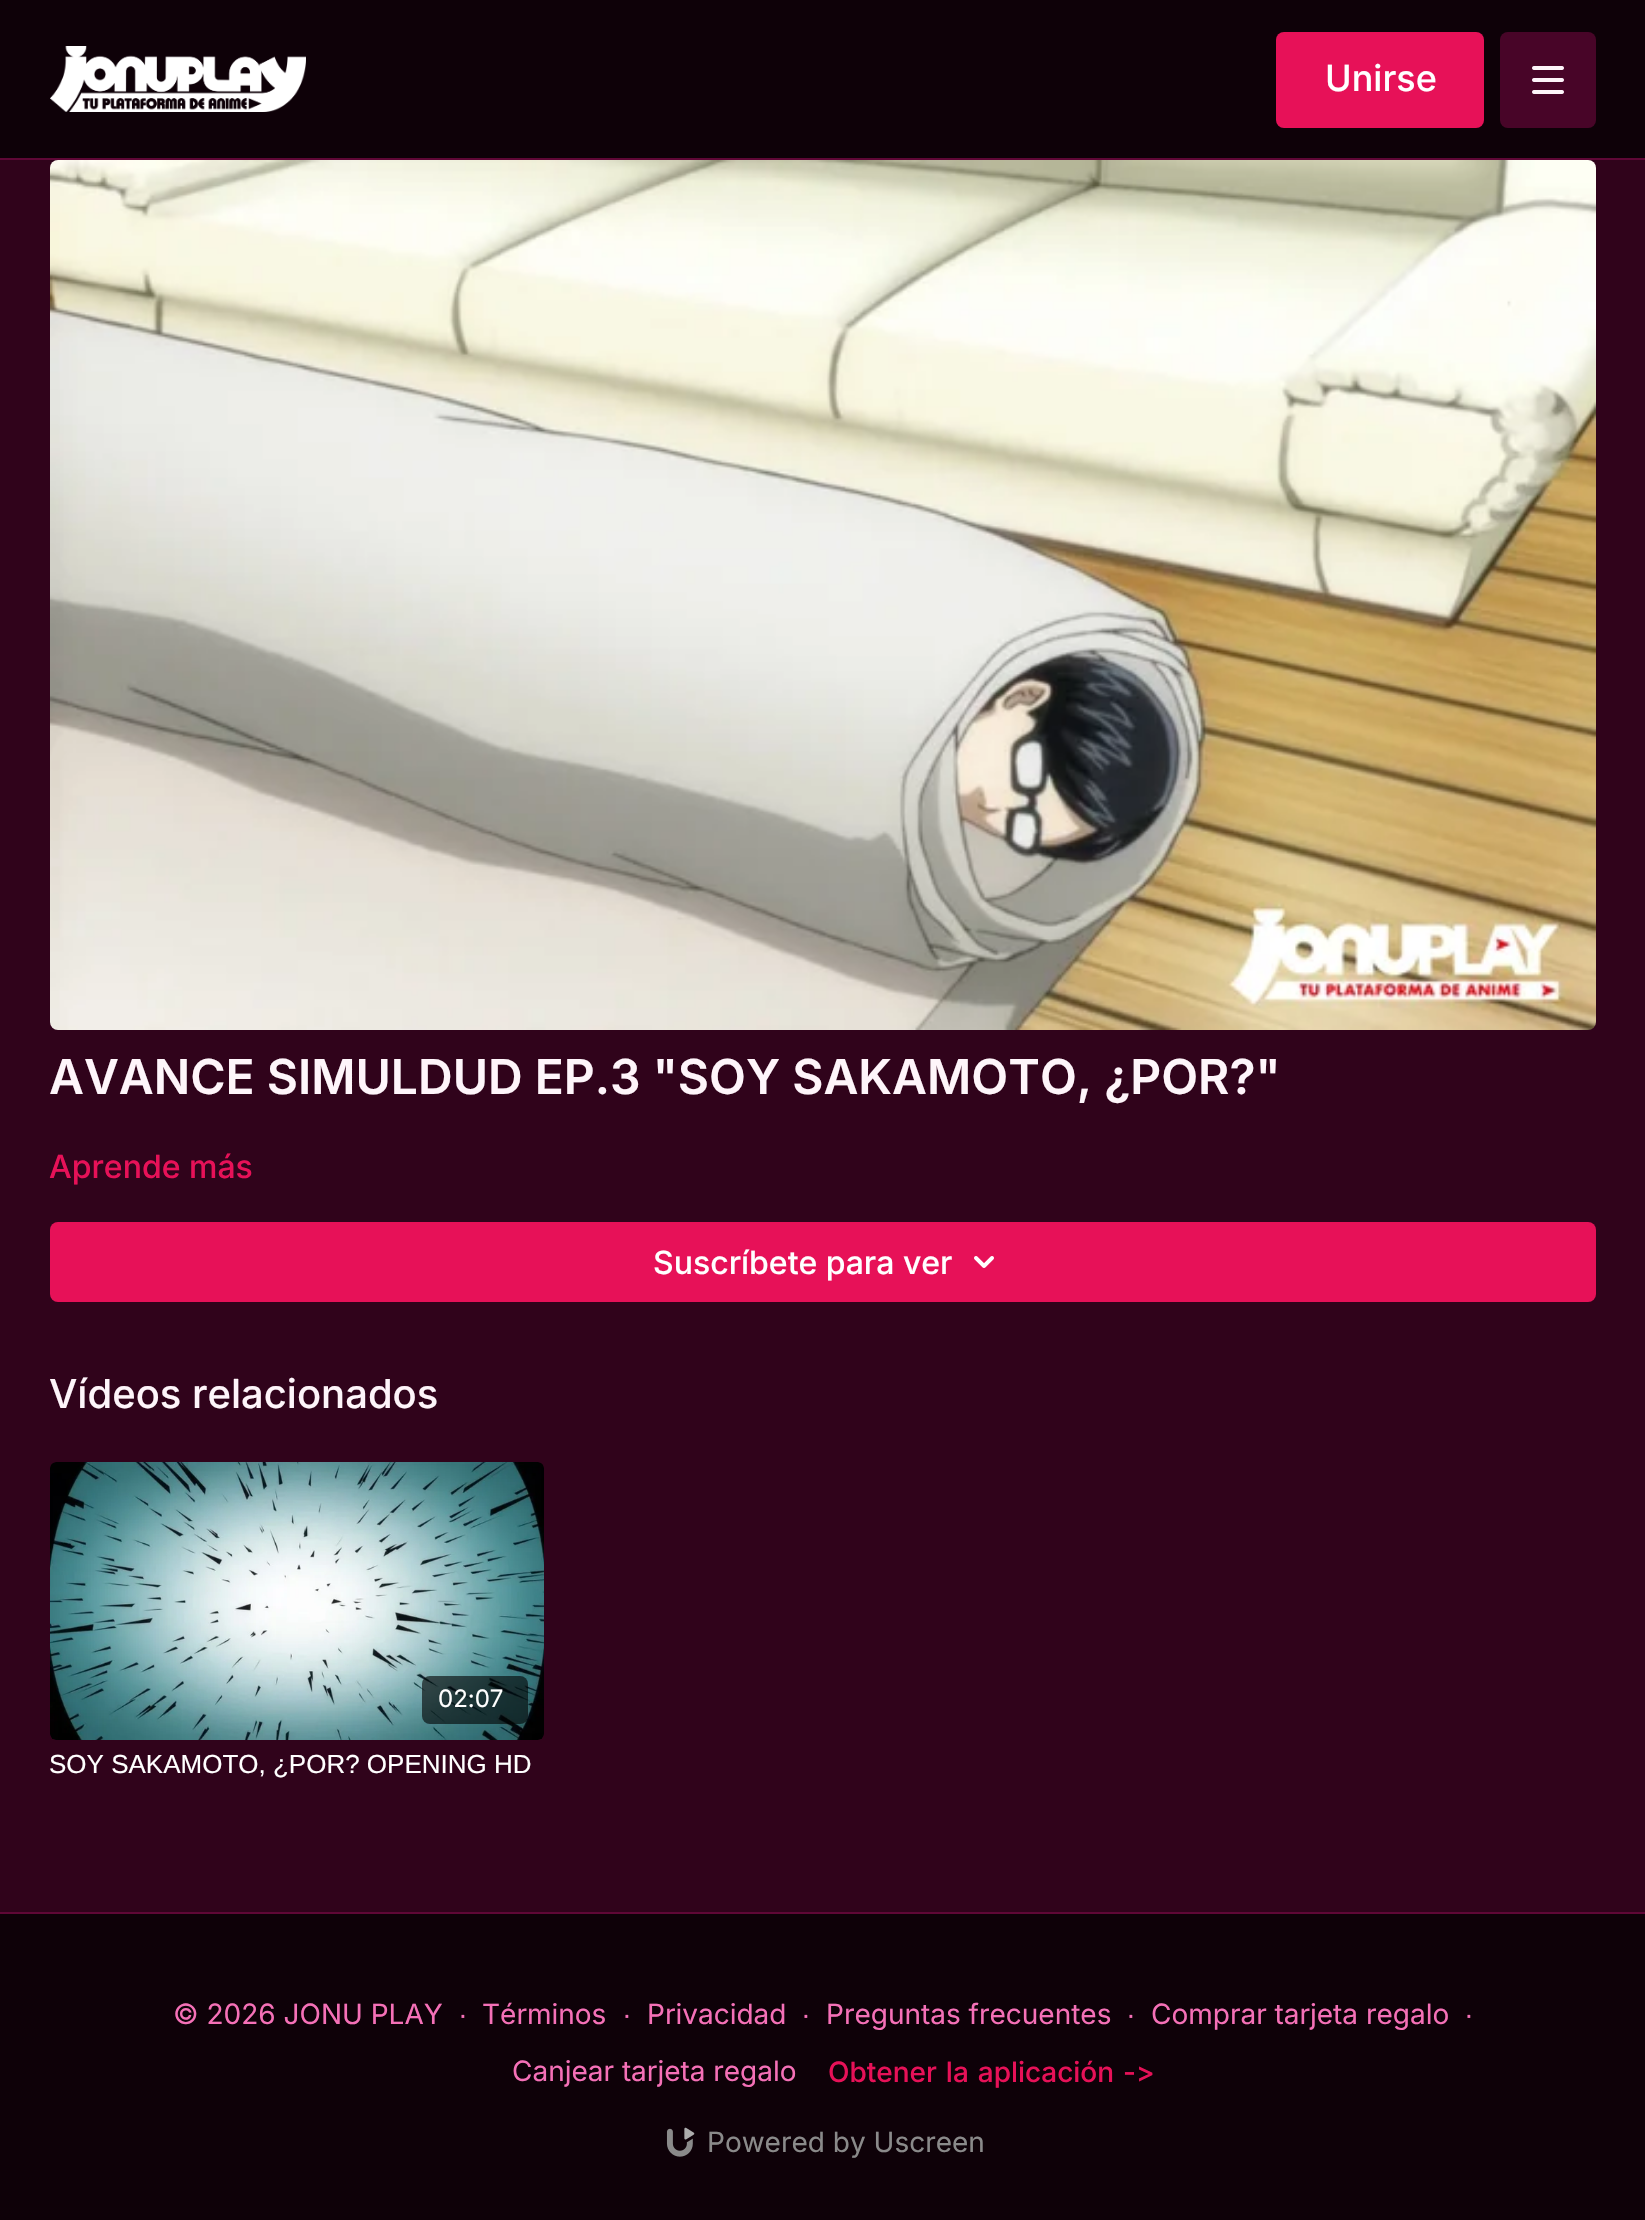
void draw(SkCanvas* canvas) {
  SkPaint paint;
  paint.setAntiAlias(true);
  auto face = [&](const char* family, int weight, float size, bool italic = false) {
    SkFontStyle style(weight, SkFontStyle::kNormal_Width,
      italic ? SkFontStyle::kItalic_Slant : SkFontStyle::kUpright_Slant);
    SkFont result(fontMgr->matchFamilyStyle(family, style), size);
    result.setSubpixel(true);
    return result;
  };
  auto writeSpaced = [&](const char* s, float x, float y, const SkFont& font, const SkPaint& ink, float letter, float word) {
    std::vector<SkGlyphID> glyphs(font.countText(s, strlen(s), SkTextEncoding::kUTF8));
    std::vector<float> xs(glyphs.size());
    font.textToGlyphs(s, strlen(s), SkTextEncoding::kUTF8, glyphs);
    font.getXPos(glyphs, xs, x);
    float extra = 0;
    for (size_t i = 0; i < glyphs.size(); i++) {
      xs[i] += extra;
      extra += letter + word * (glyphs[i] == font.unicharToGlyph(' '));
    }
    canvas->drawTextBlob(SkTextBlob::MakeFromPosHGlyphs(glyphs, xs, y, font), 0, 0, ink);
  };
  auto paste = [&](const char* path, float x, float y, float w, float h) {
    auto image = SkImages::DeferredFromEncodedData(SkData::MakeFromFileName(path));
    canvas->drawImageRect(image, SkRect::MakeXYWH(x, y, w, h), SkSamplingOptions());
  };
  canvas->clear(0xff30031b);
  paint.setColor(0xff0e0108);
  canvas->drawRect(SkRect::MakeXYWH(0, 0, 1645, 158), paint);
  paint.setColor(0xff5f0736);
  canvas->drawRect(SkRect::MakeXYWH(0, 158, 1645, 2), paint);
  paste("img/1.png", 50, 46, 256, 66);
  paint.setColor(0xffe71158);
  canvas->drawRoundRect(SkRect::MakeXYWH(1276, 32, 208, 96), 8, 8, paint);
  paint.setColor(0xff480528);
  canvas->drawRoundRect(SkRect::MakeXYWH(1500, 32, 96, 96), 8, 8, paint);
  paste("img/2.png", 1532, 66, 32, 28);
  paste("img/3.png", 50, 160, 1546, 870);
  paint.setColor(0xffe71158);
  canvas->drawRoundRect(SkRect::MakeXYWH(50, 1222, 1546, 80), 8, 8, paint);
  paste("img/4.png", 974, 1256, 20, 12);
  paste("img/5.png", 50, 1462, 494, 278);
  paint.setColor(0x99000000);
  canvas->drawRoundRect(SkRect::MakeXYWH(422, 1676, 106, 48), 8, 8, paint);
  paint.setColor(0xff0e0108);
  canvas->drawRect(SkRect::MakeXYWH(0, 1914, 1645, 306), paint);
  paint.setColor(0xff5f0736);
  canvas->drawRect(SkRect::MakeXYWH(0, 1912, 1645, 2), paint);
  paste("img/6.png", 666, 2127, 29, 30);
  auto f0 = face("Inter", 500, 36);
  paint.setColor(0xffffffff);
  canvas->drawString("Unirse", 1325, 91, f0, paint);
  auto f1 = face("Inter", 600, 48);
  paint.setColor(0xfffef5fa);
  canvas->drawString("AVANCE SIMULDUD EP.3 \"SOY SAKAMOTO, ¿POR?\"", 49, 1094, f1, paint);
  auto f2 = face("Inter", 500, 32);
  paint.setColor(0xffe71158);
  canvas->drawString("Aprende más", 49, 1178, f2, paint);
  paint.setColor(0xffffffff);
  canvas->drawString("Suscríbete para ver", 653, 1274, f2, paint);
  auto f3 = face("Inter", 500, 40);
  paint.setColor(0xfffef5fa);
  canvas->drawString("Vídeos relacionados", 49, 1408, f3, paint);
  auto f4 = face("Inter", 400, 24);
  paint.setColor(0xffffffff);
  canvas->drawString("02:07", 438, 1707, f4, paint);
  auto f5 = face("Liberation Sans", 400, 26);
  canvas->drawString("SOY SAKAMOTO, ¿POR? OPENING HD", 49, 1773, f5, paint);
  auto f6 = face("Inter", 400, 28);
  paint.setColor(0xfff570b7);
  canvas->drawString("© 2026 JONU PLAY", 173, 2024, f6, paint);
  auto f7 = face("Liberation Sans", 400, 28);
  canvas->drawString("∙", 459, 2024, f7, paint);
  canvas->drawString("Términos", 482, 2024, f6, paint);
  canvas->drawString("∙", 623, 2024, f7, paint);
  canvas->drawString("Privacidad", 647, 2024, f6, paint);
  canvas->drawString("∙", 802, 2024, f7, paint);
  canvas->drawString("Preguntas frecuentes", 826, 2024, f6, paint);
  canvas->drawString("∙", 1127, 2024, f7, paint);
  canvas->drawString("Comprar tarjeta regalo", 1151, 2024, f6, paint);
  canvas->drawString("∙", 1465, 2024, f7, paint);
  canvas->drawString("Canjear tarjeta regalo", 512, 2081, f6, paint);
  auto f8 = face("Inter", 500, 28);
  paint.setColor(0xffe71158);
  writeSpaced("Obtener la aplicación ->", 828, 2082, f8, paint, 0, 1.5f);
  paint.setColor(0xff8a8a8a);
  canvas->drawString("Powered by Uscreen", 707, 2152, f6, paint);
}
